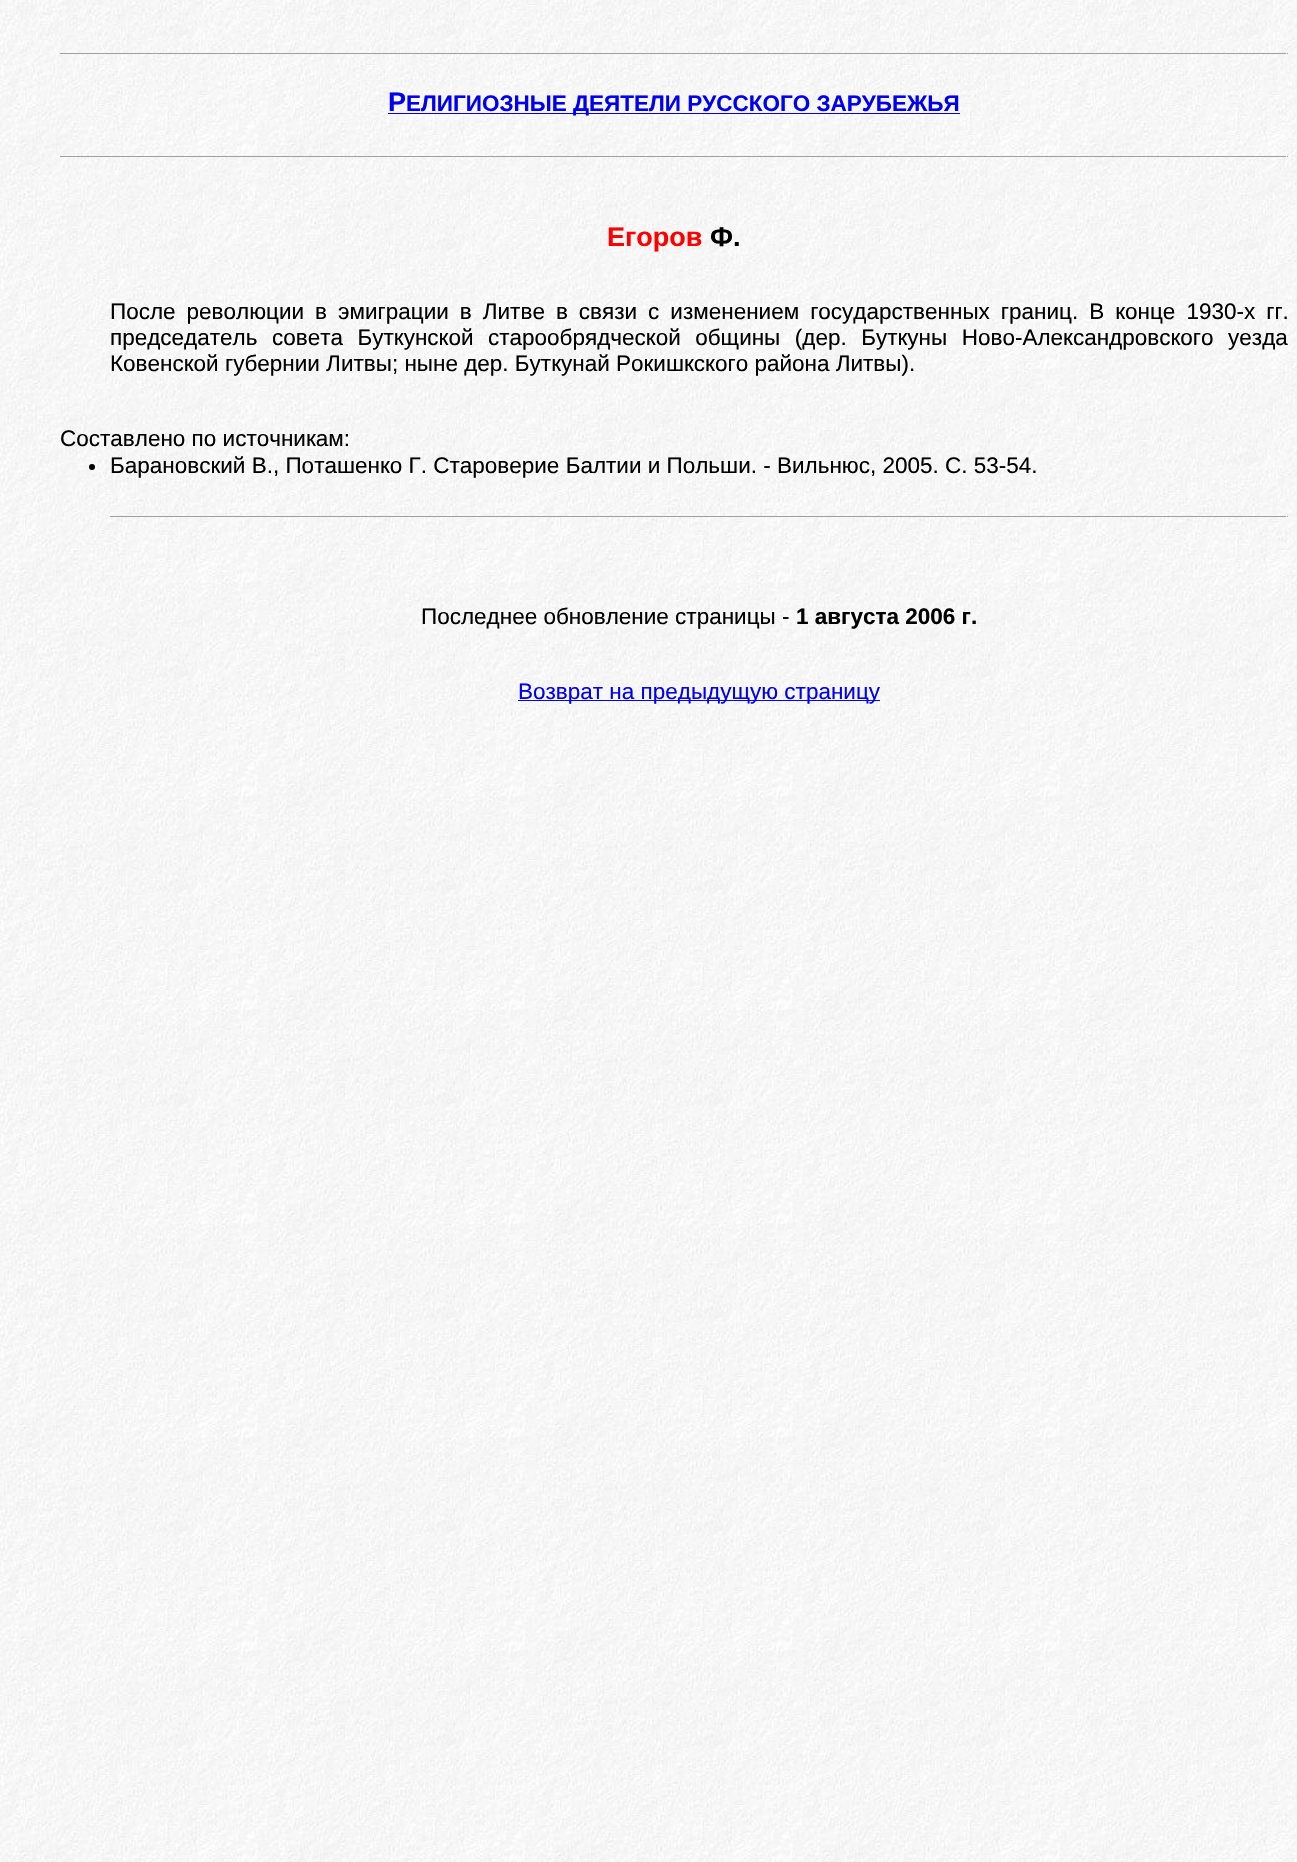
void draw(SkCanvas* canvas) {
  SkPaint paint;
  paint.setAntiAlias(true);
  auto face = [&](const char* family, int weight, float size, bool italic = false) {
    SkFontStyle style(weight, SkFontStyle::kNormal_Width,
      italic ? SkFontStyle::kItalic_Slant : SkFontStyle::kUpright_Slant);
    SkFont result(fontMgr->matchFamilyStyle(family, style), size);
    result.setSubpixel(true);
    return result;
  };
  auto writeSpaced = [&](const char* s, float x, float y, const SkFont& font, const SkPaint& ink, float letter, float word) {
    std::vector<SkGlyphID> glyphs(font.countText(s, strlen(s), SkTextEncoding::kUTF8));
    std::vector<float> xs(glyphs.size());
    font.textToGlyphs(s, strlen(s), SkTextEncoding::kUTF8, glyphs);
    font.getXPos(glyphs, xs, x);
    float extra = 0;
    for (size_t i = 0; i < glyphs.size(); i++) {
      xs[i] += extra;
      extra += letter + word * (glyphs[i] == font.unicharToGlyph(' '));
    }
    canvas->drawTextBlob(SkTextBlob::MakeFromPosHGlyphs(glyphs, xs, y, font), 0, 0, ink);
  };
  auto paste = [&](const char* path, float x, float y, float w, float h) {
    auto image = SkImages::DeferredFromEncodedData(SkData::MakeFromFileName(path));
    canvas->drawImageRect(image, SkRect::MakeXYWH(x, y, w, h), SkSamplingOptions());
  };
  canvas->clear(0xffffffff);
  paste("img/1.png", 0, 0, 1297, 1862);
  {
    const struct { float x, y, w, h; SkColor color; } items[] = {
      {60, 53, 1228, 1, 0xff9f9f9f},
      {1286, 53, 1, 1, 0xffeeeeee},
      {388, 113, 572, 1, 0xff0000ee},
      {60, 156, 1228, 1, 0xff9f9f9f},
      {1286, 156, 1, 1, 0xffeeeeee},
    };
    for (auto [x, y, w, h, color] : items) {
      paint.setColor(color);
      canvas->drawRect(SkRect::MakeXYWH(x, y, w, h), paint);
    }
  }
  paint.setColor(0xff000000);
  canvas->drawCircle(92, 467, 3, paint);
  {
    const struct { float x, y, w, h; SkColor color; } items[] = {
      {110, 516, 1178, 1, 0xff9f9f9f},
      {1286, 516, 1, 1, 0xffeeeeee},
      {518, 700, 362, 1, 0xff0000ee},
    };
    for (auto [x, y, w, h, color] : items) {
      paint.setColor(color);
      canvas->drawRect(SkRect::MakeXYWH(x, y, w, h), paint);
    }
  }
  auto f0 = face("Liberation Sans", 700, 27);
  canvas->drawString("Р", 388, 111, f0, paint);
  auto f1 = face("Liberation Sans", 700, 22.5f);
  canvas->drawString("ЕЛИГИОЗНЫЕ ДЕЯТЕЛИ РУССКОГО ЗАРУБЕЖЬЯ", 406, 111, f1, paint);
  paint.setColor(0xffff0000);
  canvas->drawString("Егоров", 607, 246, f0, paint);
  paint.setColor(0xff000000);
  canvas->drawString("Ф.", 710, 246, f0, paint);
  auto f2 = face("Liberation Sans", 400, 22.5f);
  writeSpaced("После революции в эмиграции в Литве в связи с изменением государственных границ. В конце 1930-х гг.", 110, 319, f2, paint, 0, 4.75f);
  writeSpaced("председатель совета Буткунской старообрядческой общины (дер. Буткуны Ново-Александровского уезда", 110, 345, f2, paint, 0, 8.25f);
  {
    const struct { const char* s; float x, y; } items[] = {
      {"Ковенской губернии Литвы; ныне дер. Буткунай Рокишкского района Литвы).", 110, 371},
      {"Составлено по источникам:", 60, 446},
      {"Барановский В., Поташенко Г. Староверие Балтии и Польши. - Вильнюс, 2005. С. 53-54.", 110, 473},
      {"Последнее обновление страницы -", 421, 624},
    };
    for (auto [s, x, y] : items) {
      canvas->drawString(s, x, y, f2, paint);
    }
  }
  canvas->drawString("1 августа 2006 г.", 796, 624, f1, paint);
  paint.setColor(0xff0000ee);
  canvas->drawString("Возврат на предыдущую страницу", 518, 699, f2, paint);
}
